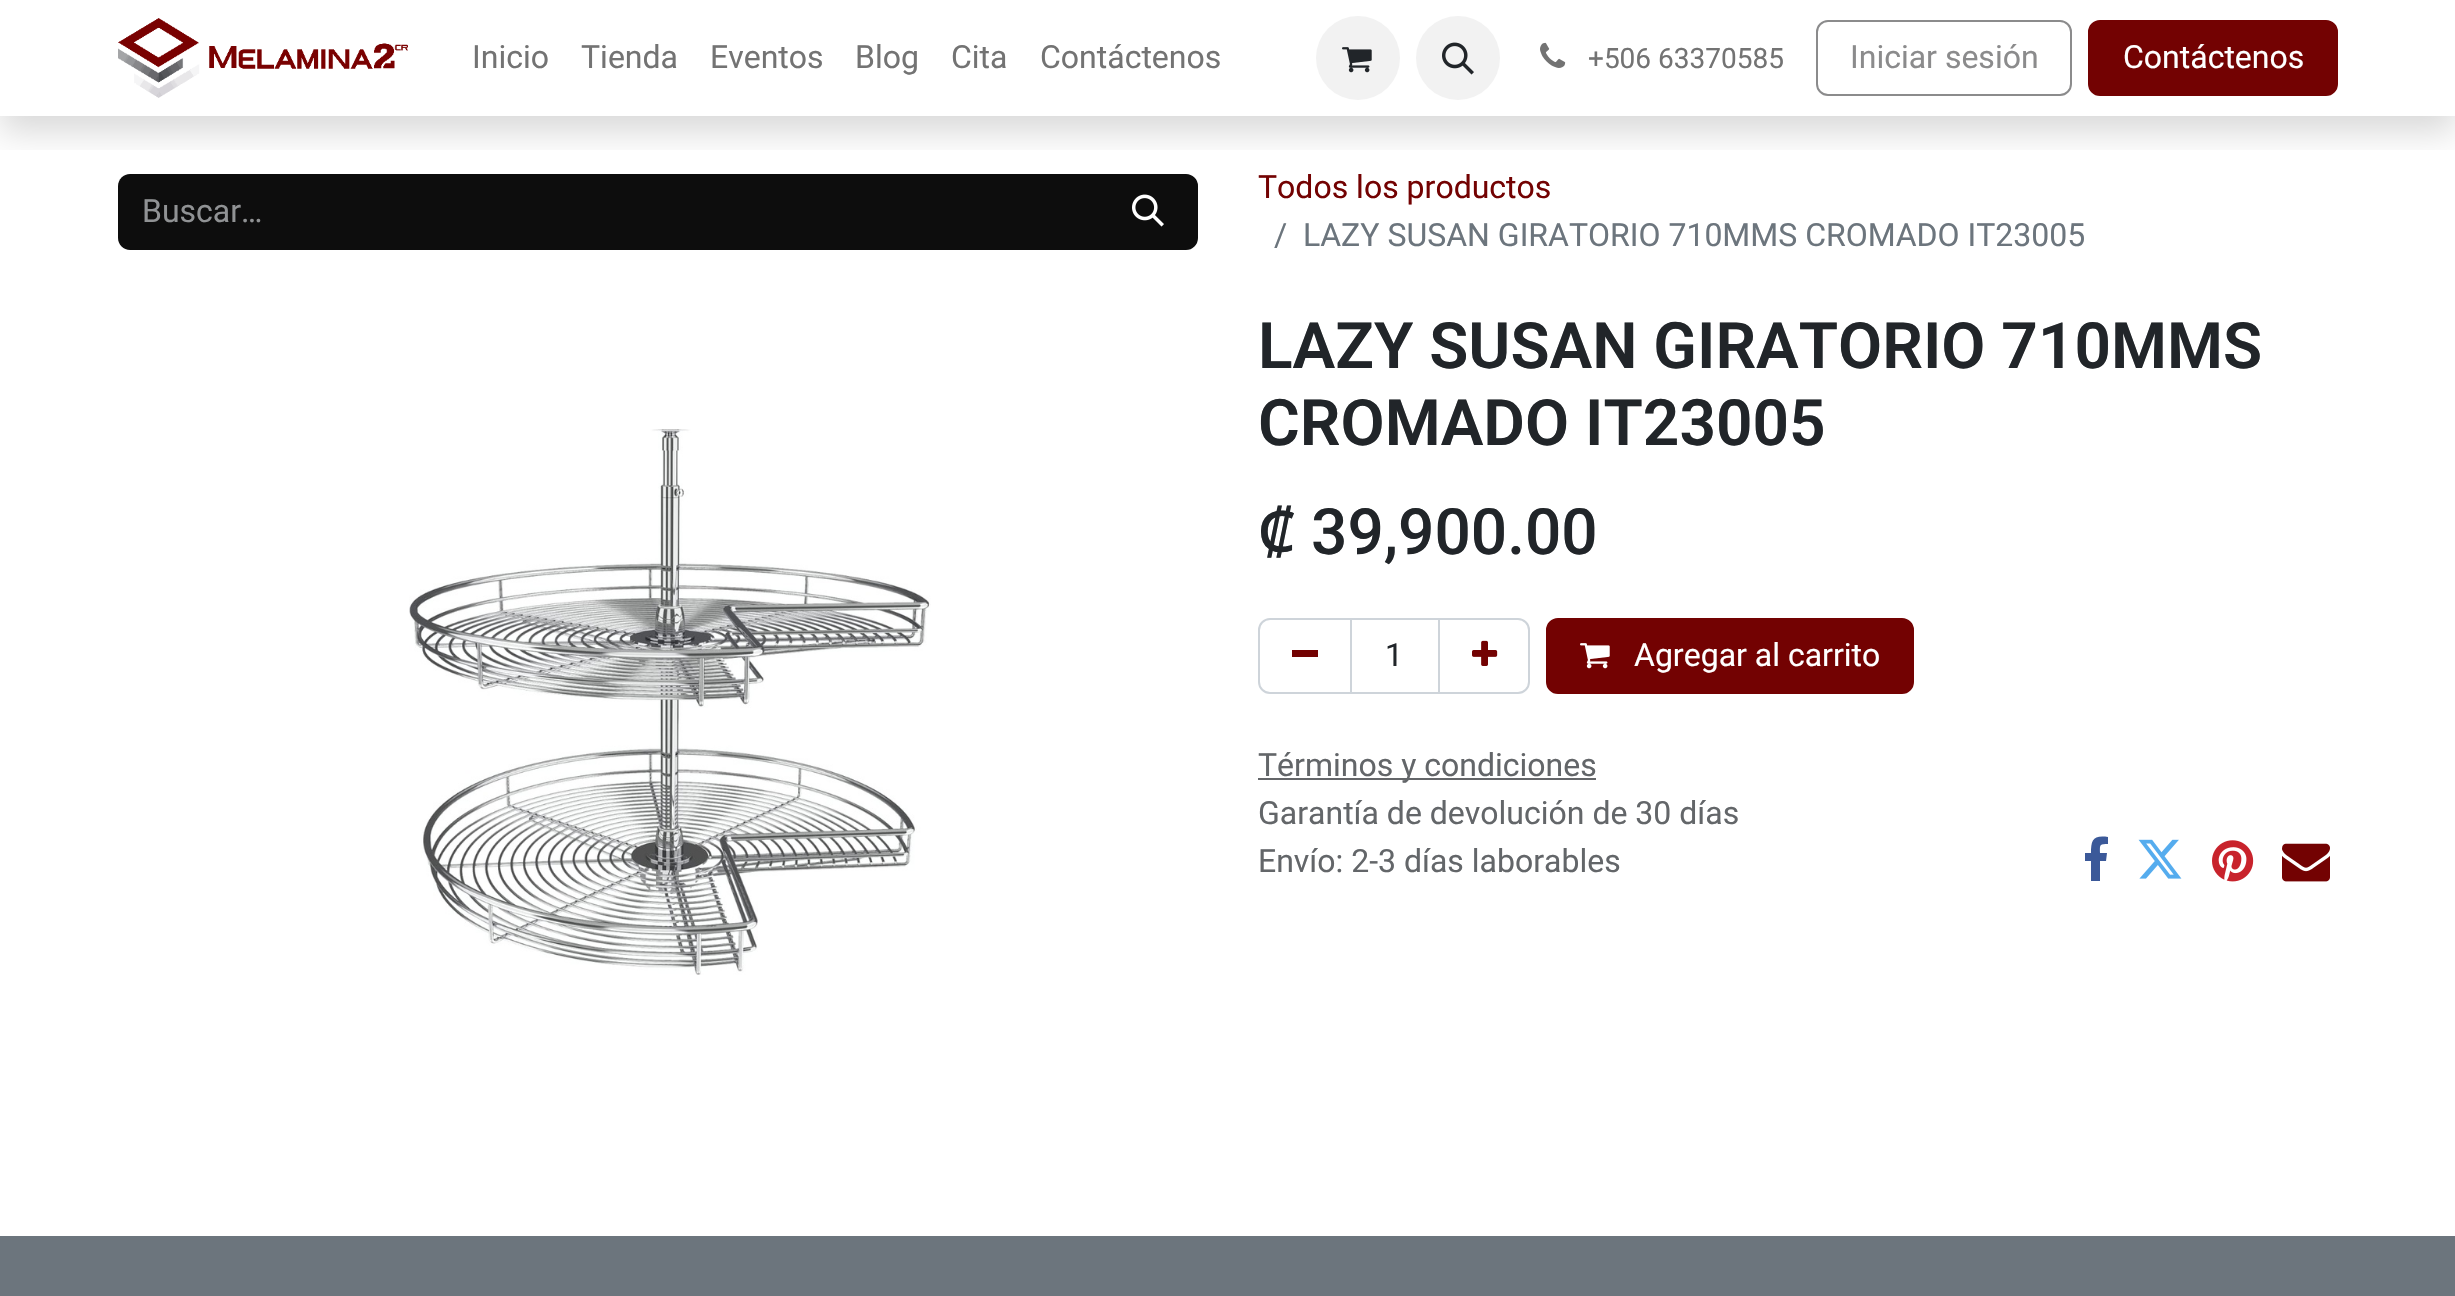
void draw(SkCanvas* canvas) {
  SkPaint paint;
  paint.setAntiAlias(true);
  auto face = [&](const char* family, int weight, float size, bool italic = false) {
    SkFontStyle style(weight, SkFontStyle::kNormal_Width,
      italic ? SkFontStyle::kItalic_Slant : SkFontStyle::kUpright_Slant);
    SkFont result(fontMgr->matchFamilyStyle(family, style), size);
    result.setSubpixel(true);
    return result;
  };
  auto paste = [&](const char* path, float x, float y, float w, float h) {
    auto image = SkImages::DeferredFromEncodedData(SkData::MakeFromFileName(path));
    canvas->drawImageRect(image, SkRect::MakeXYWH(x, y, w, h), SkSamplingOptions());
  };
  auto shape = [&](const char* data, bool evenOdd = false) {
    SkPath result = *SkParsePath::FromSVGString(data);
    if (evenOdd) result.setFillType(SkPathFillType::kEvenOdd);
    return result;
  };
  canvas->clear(0xffffffff);
  paint.setColor(0xff0d0d0d);
  canvas->drawPath(shape("M130 174H1100V250H130C123.5 250 118 244.5 118 238V186C118 179.5 123.5 174 130 174Z"), paint);
  canvas->drawPath(shape("M1099 175H1186C1192 175 1197 180 1197 186V238C1197 244 1192 249 1186 249H1099Z"), paint);
  paint.setStroke(true);
  paint.setStrokeWidth(2);
  canvas->drawPath(shape("M1099 175H1186C1192 175 1197 180 1197 186V238C1197 244 1192 249 1186 249H1099Z"), paint);
  canvas->save();
  canvas->clipRect(SkRect::MakeXYWH(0, 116, 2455, 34));
  paint.setStroke(false);
  paint.setColor(0x26000000);
  paint.setMaskFilter(SkMaskFilter::MakeBlur(kNormal_SkBlurStyle, 16));
  canvas->drawRect(SkRect::MakeXYWH(0, 16, 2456, 116), paint);
  paint.setMaskFilter(nullptr);
  canvas->restore();
  paste("img/1.png", 118, 18, 290, 80);
  paint.setColor(0xfff2f2f2);
  canvas->drawCircle(1358, 58, 42, paint);
  paste("img/2.png", 1342, 47, 30, 26);
  canvas->drawCircle(1458, 58, 42, paint);
  paste("img/3.png", 1442, 42, 32, 33);
  paste("img/4.png", 1540, 42, 26, 26);
  paint.setStroke(true);
  paint.setColor(0xff8b8b8c);
  canvas->drawRoundRect(SkRect::MakeXYWH(1817, 21, 254, 74), 11, 11, paint);
  paint.setStroke(false);
  paint.setColor(0xff730202);
  canvas->drawRoundRect(SkRect::MakeXYWH(2089, 21, 248, 74), 11, 11, paint);
  paint.setStroke(true);
  canvas->drawRoundRect(SkRect::MakeXYWH(2089, 21, 248, 74), 11, 11, paint);
  paste("img/5.png", 1132, 194, 32, 33);
  paste("img/6.png", 409, 429, 522, 546);
  paint.setColor(0xffced4da);
  canvas->drawRect(SkRect::MakeXYWH(1351, 619, 88, 74), paint);
  canvas->drawPath(shape("M1270 619H1351V693H1270C1264 693 1259 688 1259 682V630C1259 624 1264 619 1270 619Z"), paint);
  paint.setStroke(false);
  paint.setColor(0xff730202);
  canvas->drawRect(SkRect::MakeXYWH(1292, 650, 26, 7), paint);
  paint.setStroke(true);
  paint.setColor(0xffced4da);
  canvas->drawPath(shape("M1439 619H1518C1524 619 1529 624 1529 630V682C1529 688 1524 693 1518 693H1439Z"), paint);
  paste("img/7.png", 1472, 640, 26, 26);
  paint.setStroke(false);
  paint.setColor(0xff730202);
  canvas->drawRoundRect(SkRect::MakeXYWH(1547, 619, 366, 74), 11, 11, paint);
  paint.setStroke(true);
  canvas->drawRoundRect(SkRect::MakeXYWH(1547, 619, 366, 74), 11, 11, paint);
  paste("img/8.png", 1580, 643, 30, 26);
  paint.setStroke(false);
  paint.setColor(0xff646669);
  canvas->drawRect(SkRect::MakeXYWH(1258, 778, 338, 2), paint);
  paint.setColor(0xff3b5999);
  canvas->drawPath(shape("M2108 837V844C2099 844 2100 845 2100 853H2107L2106 861H2100V881H2091V861H2085V853H2091C2091 840 2093 835 2108 837Z"), paint);
  paste("img/9.png", 2138, 839, 44, 40);
  paste("img/10.png", 2212, 840, 42, 42);
  paste("img/11.png", 2282, 843, 48, 39);
  paint.setColor(0xff6c757d);
  canvas->drawRect(SkRect::MakeXYWH(0, 1236, 2455, 60), paint);
  auto f0 = face("Roboto", 400, 32);
  paint.setColor(0xff737373);
  {
    const struct { const char* s; float x, y; } items[] = {
      {"Inicio", 472, 68},
      {"Tienda", 581, 68},
      {"Eventos", 710, 68},
      {"Blog", 855, 68},
      {"Cita", 951, 68},
      {"Contáctenos", 1040, 68},
    };
    for (auto [s, x, y] : items) {
      canvas->drawString(s, x, y, f0, paint);
    }
  }
  auto f1 = face("Roboto", 400, 28);
  canvas->drawString("+506 63370585", 1588, 68, f1, paint);
  paint.setColor(0xff8b8b8c);
  canvas->drawString("Iniciar sesión", 1850, 68, f0, paint);
  paint.setColor(0xffffffff);
  canvas->drawString("Contáctenos", 2123, 68, f0, paint);
  paint.setColor(0xff909294);
  canvas->drawString("Buscar…", 142, 222, f0, paint);
  paint.setColor(0xff730202);
  canvas->drawString("Todos los productos", 1258, 198, f0, paint);
  paint.setColor(0xff6c757d);
  canvas->drawString("/", 1274, 246, f0, paint);
  canvas->drawString("LAZY SUSAN GIRATORIO 710MMS CROMADO IT23005", 1303, 246, f0, paint);
  auto f2 = face("Roboto", 600, 64);
  paint.setColor(0xff212529);
  canvas->drawString("LAZY SUSAN GIRATORIO 710MMS", 1258, 368, f2, paint);
  canvas->drawString("CROMADO IT23005", 1258, 445, f2, paint);
  auto f3 = face("Noto Sans", 500, 64);
  canvas->drawString("₡", 1258, 554, f3, paint);
  auto f4 = face("Roboto", 500, 64);
  canvas->drawString("39,900.00", 1311, 554, f4, paint);
  canvas->drawString("1", 1385, 666, f0, paint);
  paint.setColor(0xffffffff);
  canvas->drawString("Agregar al carrito", 1634, 666, f0, paint);
  paint.setColor(0xff636669);
  {
    const struct { const char* s; float x, y; } items[] = {
      {"Términos y condiciones", 1258, 776},
      {"Garantía de devolución de 30 días", 1258, 824},
      {"Envío: 2-3 días laborables", 1258, 872},
    };
    for (auto [s, x, y] : items) {
      canvas->drawString(s, x, y, f0, paint);
    }
  }
}
